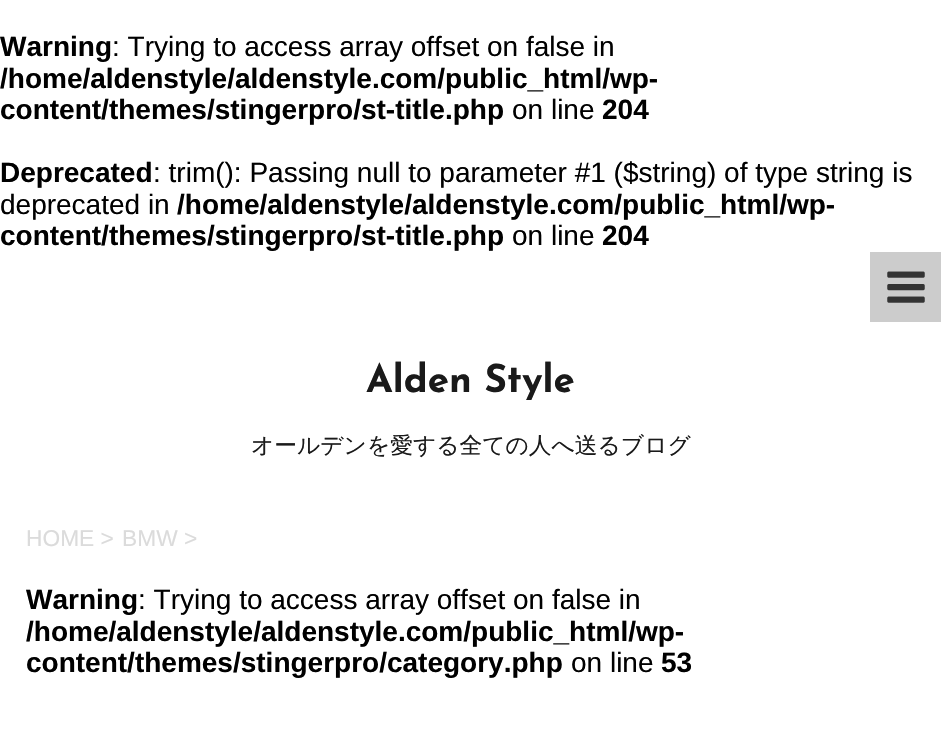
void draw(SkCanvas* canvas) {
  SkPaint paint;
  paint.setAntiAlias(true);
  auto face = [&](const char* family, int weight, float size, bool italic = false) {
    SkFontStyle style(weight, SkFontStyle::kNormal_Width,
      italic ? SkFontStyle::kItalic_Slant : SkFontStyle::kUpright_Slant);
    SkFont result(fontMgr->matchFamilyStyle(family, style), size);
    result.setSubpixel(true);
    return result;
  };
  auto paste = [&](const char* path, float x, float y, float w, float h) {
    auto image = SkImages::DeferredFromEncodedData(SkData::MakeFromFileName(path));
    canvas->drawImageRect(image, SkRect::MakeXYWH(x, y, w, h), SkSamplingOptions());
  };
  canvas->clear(0xffffffff);
  paint.setColor(0xffcccccc);
  canvas->drawRect(SkRect::MakeXYWH(870, 252, 71, 70), paint);
  paste("img/1.png", 887, 271, 38, 32);
  auto f0 = face("Liberation Sans", 700, 28);
  paint.setColor(0xff000000);
  canvas->drawString("Warning", 0, 56, f0, paint);
  auto f1 = face("Liberation Sans", 400, 28);
  canvas->drawString(": Trying to access array offset on false in", 112, 56, f1, paint);
  canvas->drawString("/home/aldenstyle/aldenstyle.com/public_html/wp-", 0, 88, f0, paint);
  canvas->drawString("content/themes/stingerpro/st-title.php", 0, 119, f0, paint);
  canvas->drawString("on line", 512, 119, f1, paint);
  canvas->drawString("204", 602, 119, f0, paint);
  canvas->drawString("Deprecated", 0, 182, f0, paint);
  canvas->drawString(": trim(): Passing null to parameter #1 ($string) of type string is", 153, 182, f1, paint);
  canvas->drawString("deprecated in", 0, 214, f1, paint);
  canvas->drawString("/home/aldenstyle/aldenstyle.com/public_html/wp-", 177, 214, f0, paint);
  canvas->drawString("content/themes/stingerpro/st-title.php", 0, 245, f0, paint);
  canvas->drawString("on line", 512, 245, f1, paint);
  canvas->drawString("204", 602, 245, f0, paint);
  auto f2 = face("Josefin Sans", 700, 38.5f);
  paint.setColor(0xff1a1a1a);
  canvas->drawString("Alden Style", 366, 392, f2, paint);
  auto f3 = face("WenQuanYi Zen Hei", 500, 22.75f);
  canvas->drawString("オールデンを愛する全ての人へ送るブログ", 251, 453, f3, paint);
  auto f4 = face("Liberation Sans", 400, 22.75f);
  paint.setColor(0xffdbdbdb);
  canvas->drawString("HOME >", 26, 546, f4, paint);
  canvas->drawString("BMW >", 122, 546, f4, paint);
  paint.setColor(0xff000000);
  canvas->drawString("Warning", 26, 609, f0, paint);
  canvas->drawString(": Trying to access array offset on false in", 138, 609, f1, paint);
  canvas->drawString("/home/aldenstyle/aldenstyle.com/public_html/wp-", 26, 641, f0, paint);
  canvas->drawString("content/themes/stingerpro/category.php", 26, 672, f0, paint);
  canvas->drawString("on line", 571, 672, f1, paint);
  canvas->drawString("53", 661, 672, f0, paint);
}
